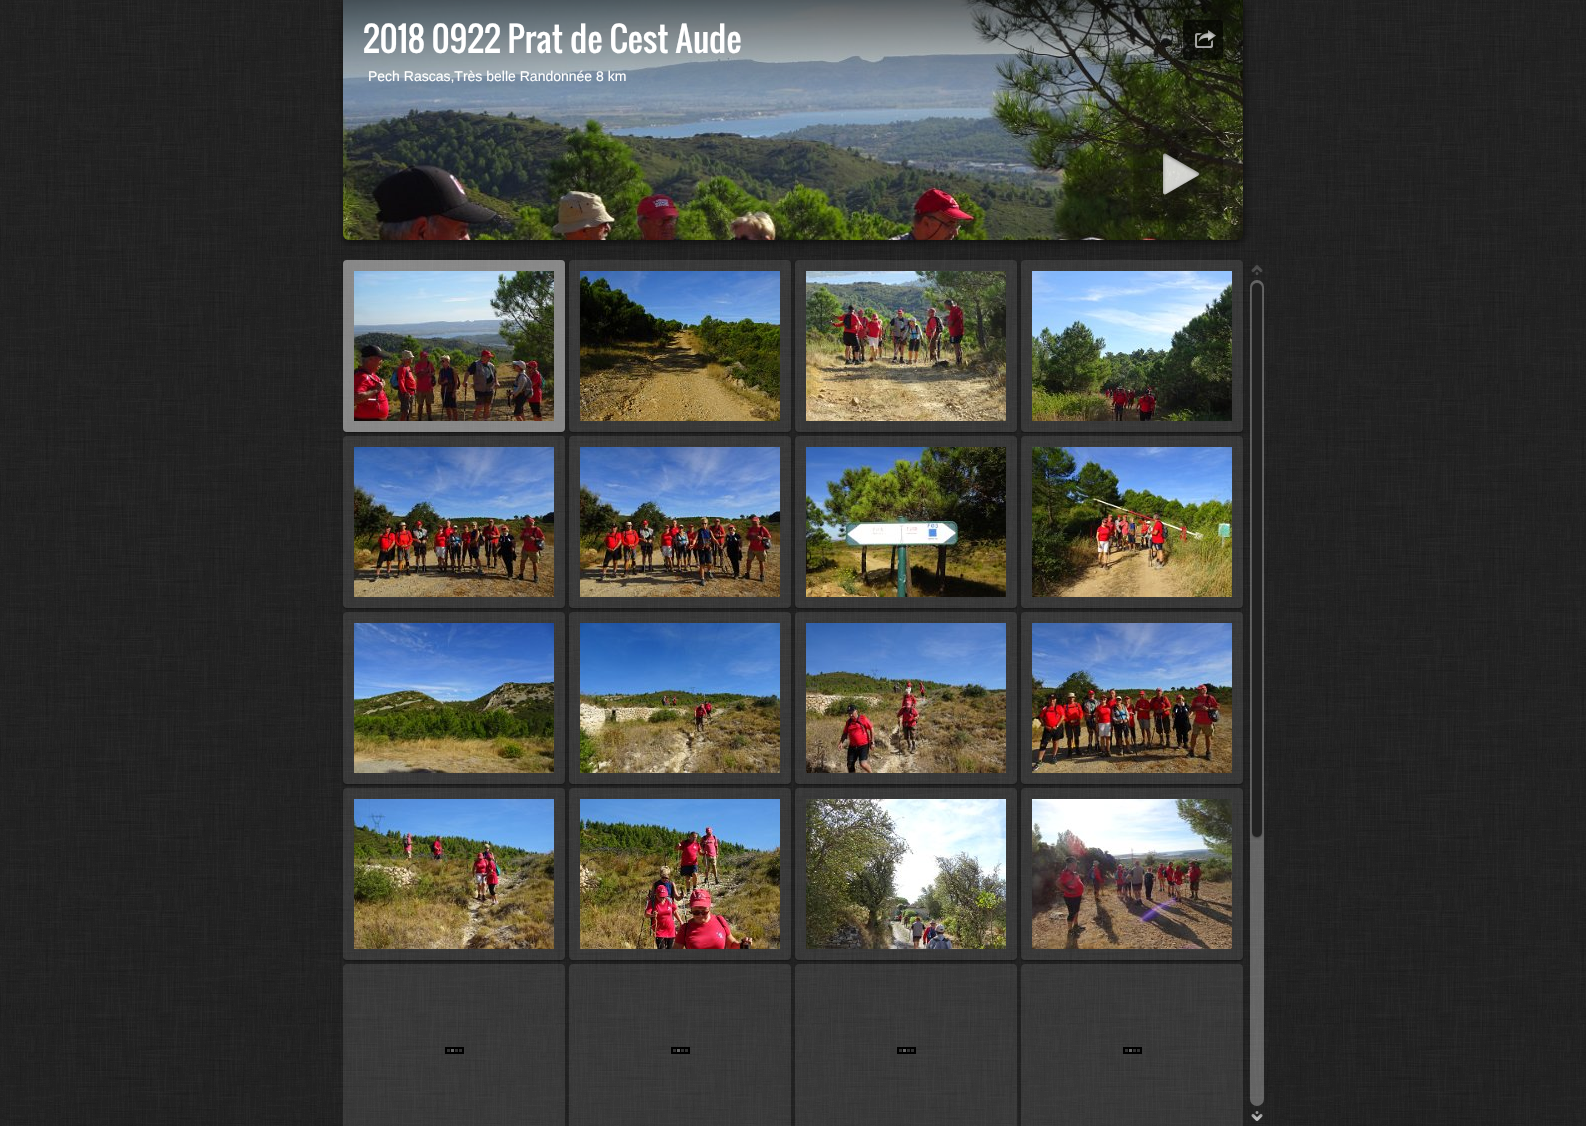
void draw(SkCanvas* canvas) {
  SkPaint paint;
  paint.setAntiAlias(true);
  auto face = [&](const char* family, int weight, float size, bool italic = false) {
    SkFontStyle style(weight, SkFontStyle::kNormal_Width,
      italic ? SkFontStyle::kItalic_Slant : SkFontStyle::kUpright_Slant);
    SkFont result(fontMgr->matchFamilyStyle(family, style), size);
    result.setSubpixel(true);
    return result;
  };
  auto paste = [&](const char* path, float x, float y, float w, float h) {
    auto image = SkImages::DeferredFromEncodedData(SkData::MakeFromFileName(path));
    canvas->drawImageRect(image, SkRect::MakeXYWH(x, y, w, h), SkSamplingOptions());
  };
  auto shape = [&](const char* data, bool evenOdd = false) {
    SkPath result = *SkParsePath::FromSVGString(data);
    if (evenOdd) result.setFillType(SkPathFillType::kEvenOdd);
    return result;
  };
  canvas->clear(0xff222222);
  paste("img/1.png", 0, 0, 1586, 1126);
  paint.setColor(0x99000000);
  paint.setMaskFilter(SkMaskFilter::MakeBlur(kNormal_SkBlurStyle, 4));
  canvas->drawRoundRect(SkRect::MakeXYWH(344, 3, 900, 240), 6, 6, paint);
  paint.setMaskFilter(nullptr);
  paste("img/2.png", 343, 0, 900, 240);
  canvas->drawRoundRect(SkRect::MakeXYWH(1183, 20, 40, 40), 4, 4, paint);
  paste("img/3.png", 1195, 30, 21, 18);
  paint.setColor(0x33000000);
  canvas->drawRoundRect(SkRect::MakeXYWH(1133, 130, 90, 90), 4, 4, paint);
  paste("img/4.png", 1163, 153, 36, 42);
  canvas->save();
  canvas->clipPath(shape("M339 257H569V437H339ZM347 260H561C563 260 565 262 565 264V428C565 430 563 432 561 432H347C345 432 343 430 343 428V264C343 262 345 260 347 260Z", true), true);
  paint.setColor(0x66000000);
  paint.setMaskFilter(SkMaskFilter::MakeBlur(kNormal_SkBlurStyle, 1));
  canvas->drawRoundRect(SkRect::MakeXYWH(343, 261, 222, 172), 4, 4, paint);
  paint.setMaskFilter(nullptr);
  canvas->restore();
  paint.setColor(0x1affffff);
  canvas->drawRoundRect(SkRect::MakeXYWH(343, 260, 222, 172), 4, 4, paint);
  paint.setColor(0x66ffffff);
  canvas->drawRoundRect(SkRect::MakeXYWH(343, 260, 222, 172), 4, 4, paint);
  paste("img/5.png", 354, 271, 200, 150);
  canvas->save();
  canvas->clipPath(shape("M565 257H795V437H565ZM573 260H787C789 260 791 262 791 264V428C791 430 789 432 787 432H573C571 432 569 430 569 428V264C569 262 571 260 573 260Z", true), true);
  paint.setColor(0x66000000);
  paint.setMaskFilter(SkMaskFilter::MakeBlur(kNormal_SkBlurStyle, 1));
  canvas->drawRoundRect(SkRect::MakeXYWH(569, 261, 222, 172), 4, 4, paint);
  paint.setMaskFilter(nullptr);
  canvas->restore();
  paint.setColor(0x1affffff);
  canvas->drawRoundRect(SkRect::MakeXYWH(569, 260, 222, 172), 4, 4, paint);
  paste("img/6.png", 580, 271, 200, 150);
  canvas->save();
  canvas->clipPath(shape("M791 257H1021V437H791ZM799 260H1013C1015 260 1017 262 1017 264V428C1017 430 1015 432 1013 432H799C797 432 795 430 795 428V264C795 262 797 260 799 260Z", true), true);
  paint.setColor(0x66000000);
  paint.setMaskFilter(SkMaskFilter::MakeBlur(kNormal_SkBlurStyle, 1));
  canvas->drawRoundRect(SkRect::MakeXYWH(795, 261, 222, 172), 4, 4, paint);
  paint.setMaskFilter(nullptr);
  canvas->restore();
  paint.setColor(0x1affffff);
  canvas->drawRoundRect(SkRect::MakeXYWH(795, 260, 222, 172), 4, 4, paint);
  paste("img/7.png", 806, 271, 200, 150);
  canvas->save();
  canvas->clipPath(shape("M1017 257H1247V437H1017ZM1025 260H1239C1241 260 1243 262 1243 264V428C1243 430 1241 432 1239 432H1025C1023 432 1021 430 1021 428V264C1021 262 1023 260 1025 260Z", true), true);
  paint.setColor(0x66000000);
  paint.setMaskFilter(SkMaskFilter::MakeBlur(kNormal_SkBlurStyle, 1));
  canvas->drawRoundRect(SkRect::MakeXYWH(1021, 261, 222, 172), 4, 4, paint);
  paint.setMaskFilter(nullptr);
  canvas->restore();
  paint.setColor(0x1affffff);
  canvas->drawRoundRect(SkRect::MakeXYWH(1021, 260, 222, 172), 4, 4, paint);
  paste("img/8.png", 1032, 271, 200, 150);
  canvas->save();
  canvas->clipPath(shape("M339 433H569V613H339ZM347 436H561C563 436 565 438 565 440V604C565 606 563 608 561 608H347C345 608 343 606 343 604V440C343 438 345 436 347 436Z", true), true);
  paint.setColor(0x66000000);
  paint.setMaskFilter(SkMaskFilter::MakeBlur(kNormal_SkBlurStyle, 1));
  canvas->drawRoundRect(SkRect::MakeXYWH(343, 437, 222, 172), 4, 4, paint);
  paint.setMaskFilter(nullptr);
  canvas->restore();
  paint.setColor(0x1affffff);
  canvas->drawRoundRect(SkRect::MakeXYWH(343, 436, 222, 172), 4, 4, paint);
  paste("img/9.png", 354, 447, 200, 150);
  canvas->save();
  canvas->clipPath(shape("M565 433H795V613H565ZM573 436H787C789 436 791 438 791 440V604C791 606 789 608 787 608H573C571 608 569 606 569 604V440C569 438 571 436 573 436Z", true), true);
  paint.setColor(0x66000000);
  paint.setMaskFilter(SkMaskFilter::MakeBlur(kNormal_SkBlurStyle, 1));
  canvas->drawRoundRect(SkRect::MakeXYWH(569, 437, 222, 172), 4, 4, paint);
  paint.setMaskFilter(nullptr);
  canvas->restore();
  paint.setColor(0x1affffff);
  canvas->drawRoundRect(SkRect::MakeXYWH(569, 436, 222, 172), 4, 4, paint);
  paste("img/10.png", 580, 447, 200, 150);
  canvas->save();
  canvas->clipPath(shape("M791 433H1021V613H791ZM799 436H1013C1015 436 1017 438 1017 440V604C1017 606 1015 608 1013 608H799C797 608 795 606 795 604V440C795 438 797 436 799 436Z", true), true);
  paint.setColor(0x66000000);
  paint.setMaskFilter(SkMaskFilter::MakeBlur(kNormal_SkBlurStyle, 1));
  canvas->drawRoundRect(SkRect::MakeXYWH(795, 437, 222, 172), 4, 4, paint);
  paint.setMaskFilter(nullptr);
  canvas->restore();
  paint.setColor(0x1affffff);
  canvas->drawRoundRect(SkRect::MakeXYWH(795, 436, 222, 172), 4, 4, paint);
  paste("img/11.png", 806, 447, 200, 150);
  canvas->save();
  canvas->clipPath(shape("M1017 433H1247V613H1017ZM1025 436H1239C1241 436 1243 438 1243 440V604C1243 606 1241 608 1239 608H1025C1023 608 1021 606 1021 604V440C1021 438 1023 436 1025 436Z", true), true);
  paint.setColor(0x66000000);
  paint.setMaskFilter(SkMaskFilter::MakeBlur(kNormal_SkBlurStyle, 1));
  canvas->drawRoundRect(SkRect::MakeXYWH(1021, 437, 222, 172), 4, 4, paint);
  paint.setMaskFilter(nullptr);
  canvas->restore();
  paint.setColor(0x1affffff);
  canvas->drawRoundRect(SkRect::MakeXYWH(1021, 436, 222, 172), 4, 4, paint);
  paste("img/12.png", 1032, 447, 200, 150);
  canvas->save();
  canvas->clipPath(shape("M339 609H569V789H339ZM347 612H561C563 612 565 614 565 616V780C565 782 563 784 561 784H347C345 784 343 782 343 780V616C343 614 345 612 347 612Z", true), true);
  paint.setColor(0x66000000);
  paint.setMaskFilter(SkMaskFilter::MakeBlur(kNormal_SkBlurStyle, 1));
  canvas->drawRoundRect(SkRect::MakeXYWH(343, 613, 222, 172), 4, 4, paint);
  paint.setMaskFilter(nullptr);
  canvas->restore();
  paint.setColor(0x1affffff);
  canvas->drawRoundRect(SkRect::MakeXYWH(343, 612, 222, 172), 4, 4, paint);
  paste("img/13.png", 354, 623, 200, 150);
  canvas->save();
  canvas->clipPath(shape("M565 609H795V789H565ZM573 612H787C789 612 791 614 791 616V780C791 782 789 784 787 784H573C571 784 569 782 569 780V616C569 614 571 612 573 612Z", true), true);
  paint.setColor(0x66000000);
  paint.setMaskFilter(SkMaskFilter::MakeBlur(kNormal_SkBlurStyle, 1));
  canvas->drawRoundRect(SkRect::MakeXYWH(569, 613, 222, 172), 4, 4, paint);
  paint.setMaskFilter(nullptr);
  canvas->restore();
  paint.setColor(0x1affffff);
  canvas->drawRoundRect(SkRect::MakeXYWH(569, 612, 222, 172), 4, 4, paint);
  paste("img/14.png", 580, 623, 200, 150);
  canvas->save();
  canvas->clipPath(shape("M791 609H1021V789H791ZM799 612H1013C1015 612 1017 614 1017 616V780C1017 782 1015 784 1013 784H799C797 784 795 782 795 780V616C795 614 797 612 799 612Z", true), true);
  paint.setColor(0x66000000);
  paint.setMaskFilter(SkMaskFilter::MakeBlur(kNormal_SkBlurStyle, 1));
  canvas->drawRoundRect(SkRect::MakeXYWH(795, 613, 222, 172), 4, 4, paint);
  paint.setMaskFilter(nullptr);
  canvas->restore();
  paint.setColor(0x1affffff);
  canvas->drawRoundRect(SkRect::MakeXYWH(795, 612, 222, 172), 4, 4, paint);
  paste("img/15.png", 806, 623, 200, 150);
  canvas->save();
  canvas->clipPath(shape("M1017 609H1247V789H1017ZM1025 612H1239C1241 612 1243 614 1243 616V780C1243 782 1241 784 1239 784H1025C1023 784 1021 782 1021 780V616C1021 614 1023 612 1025 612Z", true), true);
  paint.setColor(0x66000000);
  paint.setMaskFilter(SkMaskFilter::MakeBlur(kNormal_SkBlurStyle, 1));
  canvas->drawRoundRect(SkRect::MakeXYWH(1021, 613, 222, 172), 4, 4, paint);
  paint.setMaskFilter(nullptr);
  canvas->restore();
  paint.setColor(0x1affffff);
  canvas->drawRoundRect(SkRect::MakeXYWH(1021, 612, 222, 172), 4, 4, paint);
  paste("img/16.png", 1032, 623, 200, 150);
  canvas->save();
  canvas->clipPath(shape("M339 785H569V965H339ZM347 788H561C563 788 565 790 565 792V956C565 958 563 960 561 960H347C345 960 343 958 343 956V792C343 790 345 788 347 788Z", true), true);
  paint.setColor(0x66000000);
  paint.setMaskFilter(SkMaskFilter::MakeBlur(kNormal_SkBlurStyle, 1));
  canvas->drawRoundRect(SkRect::MakeXYWH(343, 789, 222, 172), 4, 4, paint);
  paint.setMaskFilter(nullptr);
  canvas->restore();
  paint.setColor(0x1affffff);
  canvas->drawRoundRect(SkRect::MakeXYWH(343, 788, 222, 172), 4, 4, paint);
  paste("img/17.png", 354, 799, 200, 150);
  canvas->save();
  canvas->clipPath(shape("M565 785H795V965H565ZM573 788H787C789 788 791 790 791 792V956C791 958 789 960 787 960H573C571 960 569 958 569 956V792C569 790 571 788 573 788Z", true), true);
  paint.setColor(0x66000000);
  paint.setMaskFilter(SkMaskFilter::MakeBlur(kNormal_SkBlurStyle, 1));
  canvas->drawRoundRect(SkRect::MakeXYWH(569, 789, 222, 172), 4, 4, paint);
  paint.setMaskFilter(nullptr);
  canvas->restore();
  paint.setColor(0x1affffff);
  canvas->drawRoundRect(SkRect::MakeXYWH(569, 788, 222, 172), 4, 4, paint);
  paste("img/18.png", 580, 799, 200, 150);
  canvas->save();
  canvas->clipPath(shape("M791 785H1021V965H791ZM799 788H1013C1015 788 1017 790 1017 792V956C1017 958 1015 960 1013 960H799C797 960 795 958 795 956V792C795 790 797 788 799 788Z", true), true);
  paint.setColor(0x66000000);
  paint.setMaskFilter(SkMaskFilter::MakeBlur(kNormal_SkBlurStyle, 1));
  canvas->drawRoundRect(SkRect::MakeXYWH(795, 789, 222, 172), 4, 4, paint);
  paint.setMaskFilter(nullptr);
  canvas->restore();
  paint.setColor(0x1affffff);
  canvas->drawRoundRect(SkRect::MakeXYWH(795, 788, 222, 172), 4, 4, paint);
  paste("img/19.png", 806, 799, 200, 150);
  canvas->save();
  canvas->clipPath(shape("M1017 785H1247V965H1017ZM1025 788H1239C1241 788 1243 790 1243 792V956C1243 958 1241 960 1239 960H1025C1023 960 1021 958 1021 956V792C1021 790 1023 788 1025 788Z", true), true);
  paint.setColor(0x66000000);
  paint.setMaskFilter(SkMaskFilter::MakeBlur(kNormal_SkBlurStyle, 1));
  canvas->drawRoundRect(SkRect::MakeXYWH(1021, 789, 222, 172), 4, 4, paint);
  paint.setMaskFilter(nullptr);
  canvas->restore();
  paint.setColor(0x1affffff);
  canvas->drawRoundRect(SkRect::MakeXYWH(1021, 788, 222, 172), 4, 4, paint);
  paste("img/20.png", 1032, 799, 200, 150);
  canvas->drawPath(shape("M347 964H561C563 964 565 966 565 968V1126H343V968C343 966 345 964 347 964Z"), paint);
  paste("img/21.png", 445, 1047, 19, 7);
  canvas->drawPath(shape("M573 964H787C789 964 791 966 791 968V1126H569V968C569 966 571 964 573 964Z"), paint);
  paste("img/21.png", 671, 1047, 19, 7);
  canvas->drawPath(shape("M799 964H1013C1015 964 1017 966 1017 968V1126H795V968C795 966 797 964 799 964Z"), paint);
  paste("img/21.png", 897, 1047, 19, 7);
  canvas->drawPath(shape("M1025 964H1239C1241 964 1243 966 1243 968V1126H1021V968C1021 966 1023 964 1025 964Z"), paint);
  paste("img/21.png", 1123, 1047, 19, 7);
  paste("img/22.png", 1251, 265, 12, 10);
  paint.setColor(0x4dffffff);
  canvas->drawRoundRect(SkRect::MakeXYWH(1250, 280, 14, 826), 7, 7, paint);
  paint.setColor(0x66000000);
  paint.setMaskFilter(SkMaskFilter::MakeBlur(kNormal_SkBlurStyle, 1));
  canvas->drawRoundRect(SkRect::MakeXYWH(1252, 284, 10, 554), 5, 5, paint);
  paint.setMaskFilter(nullptr);
  paint.setColor(0xff222222);
  canvas->drawRoundRect(SkRect::MakeXYWH(1252, 283, 10, 554), 5, 5, paint);
  paste("img/23.png", 1251, 1111, 12, 10);
  auto f0 = face("Oswald", 400, 33.6f);
  paint.setColor(0xffffffff);
  canvas->drawString("2018 0922 Prat de Cest Aude", 363, 53, f0, paint);
  auto f1 = face("Liberation Sans", 400, 14);
  canvas->drawString("Pech Rascas,Très belle Randonnée 8 km", 368, 81, f1, paint);
}
